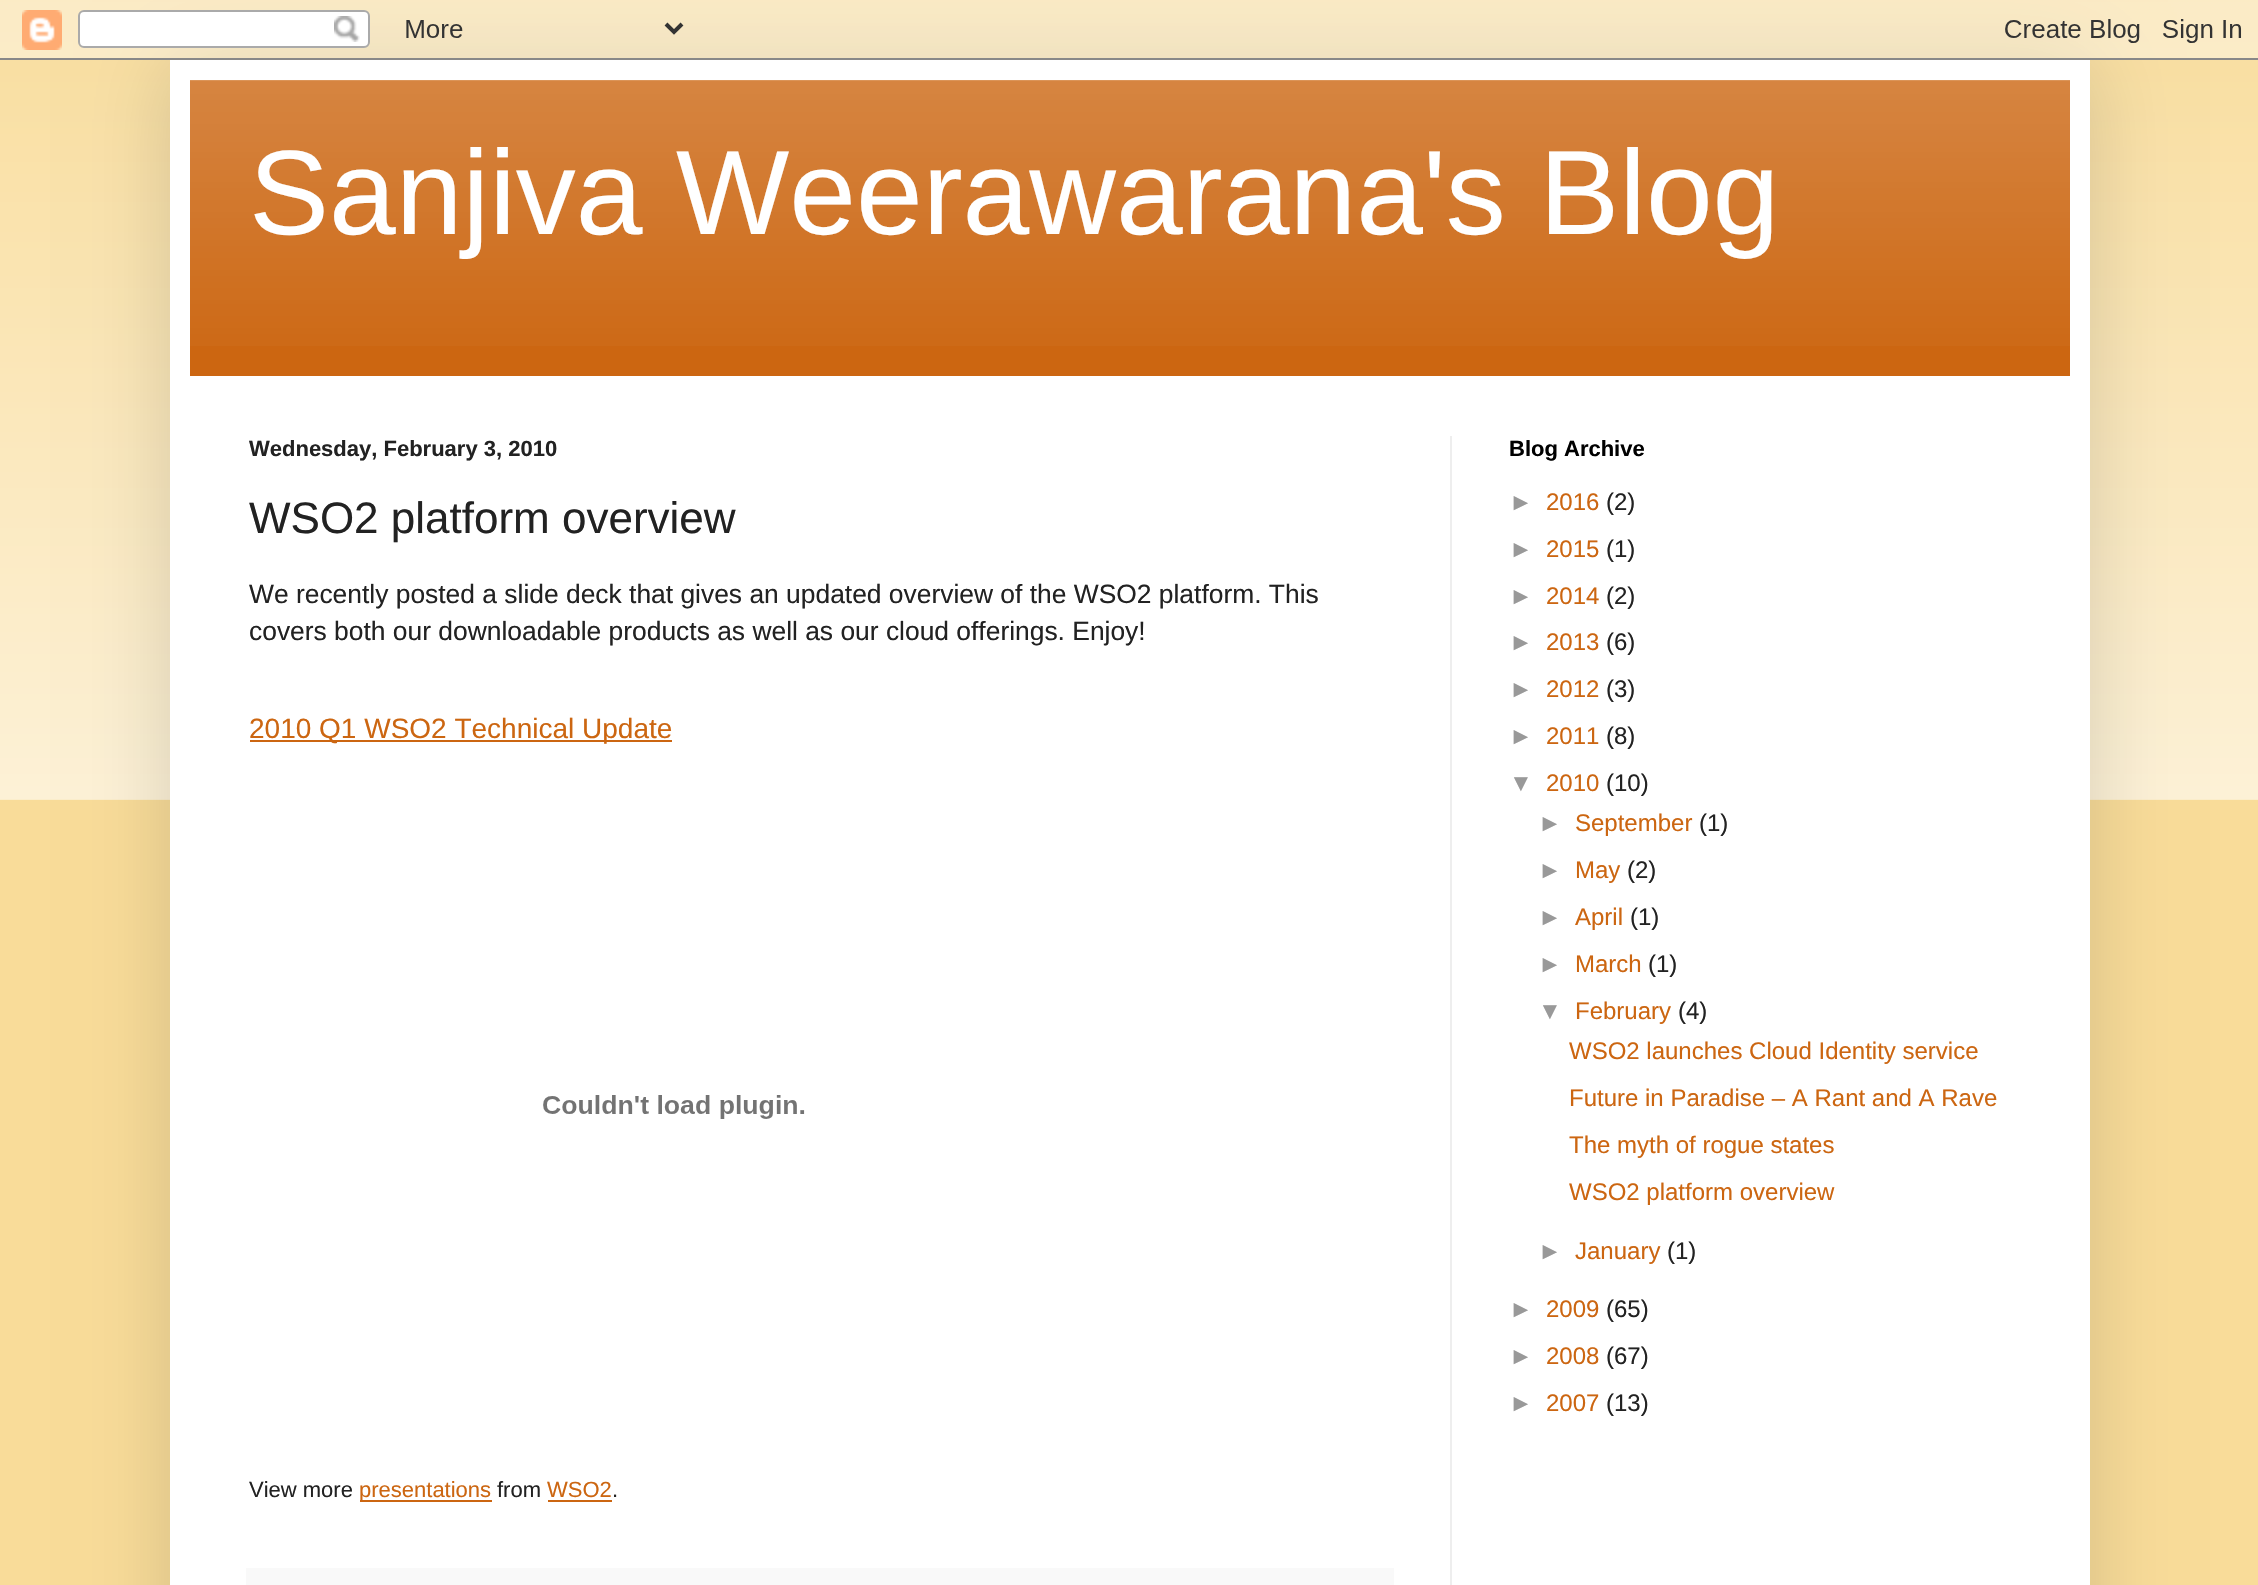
void draw(SkCanvas* canvas) {
  SkPaint paint;
  paint.setAntiAlias(true);
  auto face = [&](const char* family, int weight, float size, bool italic = false) {
    SkFontStyle style(weight, SkFontStyle::kNormal_Width,
      italic ? SkFontStyle::kItalic_Slant : SkFontStyle::kUpright_Slant);
    SkFont result(fontMgr->matchFamilyStyle(family, style), size);
    result.setSubpixel(true);
    return result;
  };
  auto paste = [&](const char* path, float x, float y, float w, float h) {
    auto image = SkImages::DeferredFromEncodedData(SkData::MakeFromFileName(path));
    canvas->drawImageRect(image, SkRect::MakeXYWH(x, y, w, h), SkSamplingOptions());
  };
  canvas->clear(0xfff9dc99);
  paste("img/1.png", 0, 0, 2258, 800);
  paint.setColor(0x26000000);
  paint.setMaskFilter(SkMaskFilter::MakeBlur(kNormal_SkBlurStyle, 40));
  canvas->drawRect(SkRect::MakeXYWH(170, 60, 1920, 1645), paint);
  paint.setMaskFilter(nullptr);
  paste("img/2.png", 0, 0, 2258, 60);
  paint.setColor(0xffffffff);
  canvas->drawRect(SkRect::MakeXYWH(170, 60, 1920, 1525), paint);
  paint.setColor(0xffcc6611);
  canvas->drawRect(SkRect::MakeXYWH(190, 80, 1880, 296), paint);
  paste("img/3.png", 190, 80, 1880, 266);
  paint.setColor(0xffeeeeee);
  canvas->drawRect(SkRect::MakeXYWH(1450, 436, 2, 1149), paint);
  paint.setColor(0xffcc6611);
  canvas->drawRect(SkRect::MakeXYWH(250, 740, 422, 2), paint);
  paste("img/4.png", 543, 1095, 262, 24);
  {
    const struct { float x, y, w, h; SkColor color; } items[] = {
      {360, 1500, 132, 2, 0xffcc6611},
      {548, 1500, 64, 2, 0xffcc6611},
      {246, 1568, 1148, 17, 0xfff9f9f9},
    };
    for (auto [x, y, w, h, color] : items) {
      paint.setColor(color);
      canvas->drawRect(SkRect::MakeXYWH(x, y, w, h), paint);
    }
  }
  auto f0 = face("Liberation Sans", 400, 120);
  paint.setColor(0xffffffff);
  canvas->drawString("Sanjiva Weerawarana's Blog", 249, 234, f0, paint);
  auto f1 = face("Liberation Sans", 700, 22);
  paint.setColor(0xff222222);
  canvas->drawString("Wednesday, February 3, 2010", 249, 456, f1, paint);
  auto f2 = face("Liberation Sans", 400, 44);
  canvas->drawString("WSO2 platform overview", 249, 533, f2, paint);
  auto f3 = face("Liberation Sans", 400, 26.4f);
  canvas->drawString("We recently posted a slide deck that gives an updated overview of the WSO2 platform. This", 249, 603, f3, paint);
  canvas->drawString("covers both our downloadable products as well as our cloud offerings. Enjoy!", 249, 640, f3, paint);
  auto f4 = face("Liberation Sans", 400, 28);
  paint.setColor(0xffcc6611);
  canvas->drawString("2010 Q1 WSO2 Technical Update", 249, 738, f4, paint);
  auto f5 = face("Liberation Sans", 400, 22);
  paint.setColor(0xff222222);
  canvas->drawString("View more", 249, 1497, f5, paint);
  paint.setColor(0xffcc6611);
  canvas->drawString("presentations", 359, 1497, f5, paint);
  paint.setColor(0xff222222);
  canvas->drawString("from", 497, 1497, f5, paint);
  paint.setColor(0xffcc6611);
  canvas->drawString("WSO2", 547, 1497, f5, paint);
  paint.setColor(0xff222222);
  canvas->drawString(".", 612, 1497, f5, paint);
  paint.setColor(0xff000000);
  canvas->drawString("Blog Archive", 1509, 456, f1, paint);
  auto f6 = face("Liberation Sans", 400, 24);
  paint.setColor(0xff999999);
  canvas->drawString("►", 1509, 510, f6, paint);
  paint.setColor(0xffcc6611);
  canvas->drawString("2016", 1546, 510, f6, paint);
  paint.setColor(0xff222222);
  canvas->drawString("(2)", 1606, 510, f6, paint);
  paint.setColor(0xff999999);
  canvas->drawString("►", 1509, 557, f6, paint);
  paint.setColor(0xffcc6611);
  canvas->drawString("2015", 1546, 557, f6, paint);
  paint.setColor(0xff222222);
  canvas->drawString("(1)", 1606, 557, f6, paint);
  paint.setColor(0xff999999);
  canvas->drawString("►", 1509, 604, f6, paint);
  paint.setColor(0xffcc6611);
  canvas->drawString("2014", 1546, 604, f6, paint);
  paint.setColor(0xff222222);
  canvas->drawString("(2)", 1606, 604, f6, paint);
  paint.setColor(0xff999999);
  canvas->drawString("►", 1509, 650, f6, paint);
  paint.setColor(0xffcc6611);
  canvas->drawString("2013", 1546, 650, f6, paint);
  paint.setColor(0xff222222);
  canvas->drawString("(6)", 1606, 650, f6, paint);
  paint.setColor(0xff999999);
  canvas->drawString("►", 1509, 697, f6, paint);
  paint.setColor(0xffcc6611);
  canvas->drawString("2012", 1546, 697, f6, paint);
  paint.setColor(0xff222222);
  canvas->drawString("(3)", 1606, 697, f6, paint);
  paint.setColor(0xff999999);
  canvas->drawString("►", 1509, 744, f6, paint);
  paint.setColor(0xffcc6611);
  canvas->drawString("2011", 1546, 744, f6, paint);
  paint.setColor(0xff222222);
  canvas->drawString("(8)", 1606, 744, f6, paint);
  paint.setColor(0xff999999);
  canvas->drawString("▼", 1509, 791, f6, paint);
  paint.setColor(0xffcc6611);
  canvas->drawString("2010", 1546, 791, f6, paint);
  paint.setColor(0xff222222);
  canvas->drawString("(10)", 1606, 791, f6, paint);
  paint.setColor(0xff999999);
  canvas->drawString("►", 1538, 831, f6, paint);
  paint.setColor(0xffcc6611);
  canvas->drawString("September", 1575, 831, f6, paint);
  paint.setColor(0xff222222);
  canvas->drawString("(1)", 1699, 831, f6, paint);
  paint.setColor(0xff999999);
  canvas->drawString("►", 1538, 878, f6, paint);
  paint.setColor(0xffcc6611);
  canvas->drawString("May", 1575, 878, f6, paint);
  paint.setColor(0xff222222);
  canvas->drawString("(2)", 1627, 878, f6, paint);
  paint.setColor(0xff999999);
  canvas->drawString("►", 1538, 925, f6, paint);
  paint.setColor(0xffcc6611);
  canvas->drawString("April", 1575, 925, f6, paint);
  paint.setColor(0xff222222);
  canvas->drawString("(1)", 1630, 925, f6, paint);
  paint.setColor(0xff999999);
  canvas->drawString("►", 1538, 972, f6, paint);
  paint.setColor(0xffcc6611);
  canvas->drawString("March", 1575, 972, f6, paint);
  paint.setColor(0xff222222);
  canvas->drawString("(1)", 1648, 972, f6, paint);
  paint.setColor(0xff999999);
  canvas->drawString("▼", 1538, 1019, f6, paint);
  paint.setColor(0xffcc6611);
  canvas->drawString("February", 1575, 1019, f6, paint);
  paint.setColor(0xff222222);
  canvas->drawString("(4)", 1678, 1019, f6, paint);
  paint.setColor(0xffcc6611);
  {
    const struct { const char* s; float x, y; } items[] = {
      {"WSO2 launches Cloud Identity service", 1569, 1059},
      {"Future in Paradise – A Rant and A Rave", 1569, 1106},
      {"The myth of rogue states", 1569, 1153},
      {"WSO2 platform overview", 1569, 1200},
    };
    for (auto [s, x, y] : items) {
      canvas->drawString(s, x, y, f6, paint);
    }
  }
  paint.setColor(0xff999999);
  canvas->drawString("►", 1538, 1259, f6, paint);
  paint.setColor(0xffcc6611);
  canvas->drawString("January", 1575, 1259, f6, paint);
  paint.setColor(0xff222222);
  canvas->drawString("(1)", 1667, 1259, f6, paint);
  paint.setColor(0xff999999);
  canvas->drawString("►", 1509, 1317, f6, paint);
  paint.setColor(0xffcc6611);
  canvas->drawString("2009", 1546, 1317, f6, paint);
  paint.setColor(0xff222222);
  canvas->drawString("(65)", 1606, 1317, f6, paint);
  paint.setColor(0xff999999);
  canvas->drawString("►", 1509, 1364, f6, paint);
  paint.setColor(0xffcc6611);
  canvas->drawString("2008", 1546, 1364, f6, paint);
  paint.setColor(0xff222222);
  canvas->drawString("(67)", 1606, 1364, f6, paint);
  paint.setColor(0xff999999);
  canvas->drawString("►", 1509, 1411, f6, paint);
  paint.setColor(0xffcc6611);
  canvas->drawString("2007", 1546, 1411, f6, paint);
  paint.setColor(0xff222222);
  canvas->drawString("(13)", 1606, 1411, f6, paint);
}
